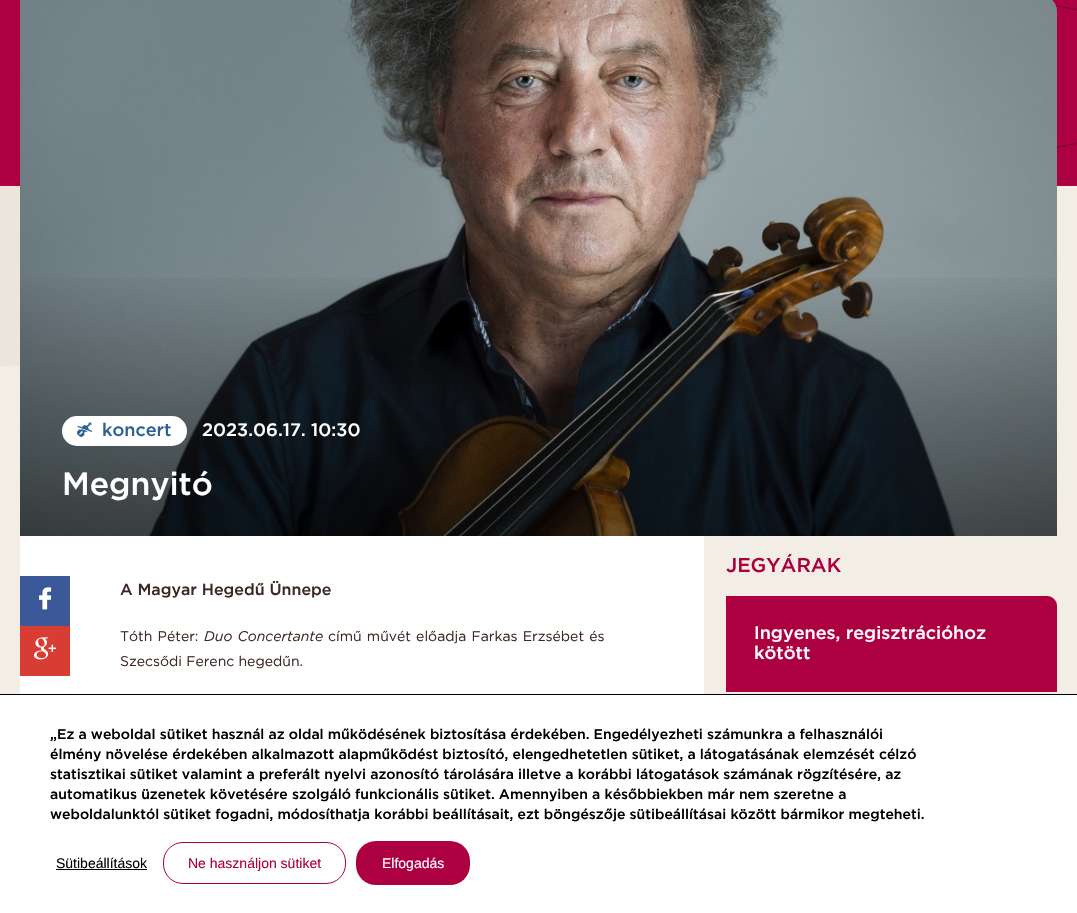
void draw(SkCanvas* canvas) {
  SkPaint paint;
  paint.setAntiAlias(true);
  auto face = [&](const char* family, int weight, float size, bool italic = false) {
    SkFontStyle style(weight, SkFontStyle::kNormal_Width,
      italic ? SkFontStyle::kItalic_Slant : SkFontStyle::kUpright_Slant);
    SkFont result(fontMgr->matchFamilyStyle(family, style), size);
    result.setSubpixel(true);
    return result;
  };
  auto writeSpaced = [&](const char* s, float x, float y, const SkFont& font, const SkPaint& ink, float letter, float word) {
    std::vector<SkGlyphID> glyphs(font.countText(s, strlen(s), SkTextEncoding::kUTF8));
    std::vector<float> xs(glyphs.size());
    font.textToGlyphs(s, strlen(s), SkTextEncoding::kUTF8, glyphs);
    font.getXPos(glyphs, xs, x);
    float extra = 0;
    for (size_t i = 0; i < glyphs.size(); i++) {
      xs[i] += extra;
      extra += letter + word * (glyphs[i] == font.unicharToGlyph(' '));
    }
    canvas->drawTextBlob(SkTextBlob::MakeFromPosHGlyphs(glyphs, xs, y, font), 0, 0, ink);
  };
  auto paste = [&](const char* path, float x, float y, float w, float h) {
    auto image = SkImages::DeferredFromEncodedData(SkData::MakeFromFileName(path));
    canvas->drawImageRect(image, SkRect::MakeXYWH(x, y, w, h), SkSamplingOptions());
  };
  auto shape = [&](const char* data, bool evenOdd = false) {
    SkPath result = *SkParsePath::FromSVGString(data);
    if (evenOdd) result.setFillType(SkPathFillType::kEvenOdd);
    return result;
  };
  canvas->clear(0xffffffff);
  paste("img/1.png", 0, 0, 1077, 186);
  paste("img/2.png", 0, 186, 1077, 508);
  paste("img/3.png", 20, 0, 1037, 536);
  {
    const SkColor colors[] = {0x00000000, 0x00000000, 0x80000000};
    const float stops[] = {0, 0.5f, 1};
    const SkPoint ends[] = {{539, -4}, {539, 536}};
    paint.setShader(SkGradientShader::MakeLinear(ends, colors, stops, 3, SkTileMode::kClamp));
    paint.setAlpha(255);
  }
  canvas->drawRect(SkRect::MakeXYWH(20, 278, 1037, 258), paint);
  paint.setShader(nullptr);
  paint.setColor(0xffffffff);
  canvas->drawRoundRect(SkRect::MakeXYWH(62, 416, 125, 30), 15, 15, paint);
  paste("img/4.png", 77, 422, 15, 15);
  canvas->drawRect(SkRect::MakeXYWH(20, 536, 684, 158), paint);
  paint.setColor(0xff3b5998);
  canvas->drawRect(SkRect::MakeXYWH(20, 576, 50, 50), paint);
  paste("img/5.png", 39, 587, 13, 23);
  paint.setColor(0xffd73d32);
  canvas->drawRect(SkRect::MakeXYWH(20, 626, 50, 50), paint);
  paste("img/6.png", 34, 637, 22, 23);
  paint.setColor(0xffac0040);
  canvas->drawPath(shape("M726 596H1047C1052.5 596 1057 600.5 1057 606V692H726Z"), paint);
  paint.setColor(0xff000000);
  canvas->drawRect(SkRect::MakeXYWH(0, 694, 1077, 1), paint);
  canvas->drawRect(SkRect::MakeXYWH(56, 869, 91, 1), paint);
  paint.setStroke(true);
  paint.setStrokeWidth(1);
  paint.setColor(0xffaa003f);
  canvas->drawRoundRect(SkRect::MakeXYWH(163.5f, 842.5f, 182, 41), 19.5f, 19.5f, paint);
  paint.setStroke(false);
  paint.setColor(0xffac0040);
  canvas->drawRoundRect(SkRect::MakeXYWH(356, 841, 114, 44), 20, 20, paint);
  auto f0 = face("Gotham", 500, 18);
  paint.setColor(0xff2e6094);
  canvas->drawString("koncert", 102, 436, f0, paint);
  paint.setColor(0xffffffff);
  canvas->drawString("2023.06.17. 10:30", 202, 436, f0, paint);
  auto f1 = face("Gotham", 500, 32);
  canvas->drawString("Megnyitó", 62, 495, f1, paint);
  auto f2 = face("Gotham", 500, 16);
  paint.setColor(0xff3e2723);
  canvas->drawString("A Magyar Hegedű Ünnepe", 120, 595, f2, paint);
  auto f3 = face("Gotham", 400, 14);
  writeSpaced("Tóth Péter:", 120, 641, f3, paint, 0, 1);
  auto f4 = face("Gotham", 400, 14, true);
  writeSpaced("Duo Concertante", 204, 641, f4, paint, 0, 1);
  writeSpaced("című művét előadja Farkas Erzsébet és", 328, 641, f3, paint, 0, 1);
  canvas->drawString("Szecsődi Ferenc hegedűn.", 120, 666, f3, paint);
  auto f5 = face("Gotham", 500, 20);
  paint.setColor(0xffac0040);
  canvas->drawString("JEGYÁRAK", 726, 572, f5, paint);
  paint.setColor(0xffffffff);
  canvas->drawString("Ingyenes, regisztrációhoz", 754, 639, f0, paint);
  canvas->drawString("kötött", 754, 659, f0, paint);
  auto f6 = face("Gotham", 500, 14);
  paint.setColor(0xff000000);
  {
    const struct { const char* s; float x, y; } items[] = {
      {"„Ez a weboldal sütiket használ az oldal működésének biztosítása érdekében. Engedélyezheti számunkra a felhasználói", 50, 739},
      {"élmény növelése érdekében alkalmazott alapműködést biztosító, elengedhetetlen sütiket, a látogatásának elemzését célzó", 50, 759},
      {"statisztikai sütiket valamint a preferált nyelvi azonosító tárolására illetve a korábbi látogatások számának rögzítésére, az", 50, 779},
      {"automatikus üzenetek követésére szolgáló funkcionális sütiket. Amennyiben a későbbiekben már nem szeretne a", 50, 799},
      {"weboldalunktól sütiket fogadni, módosíthatja korábbi beállításait, ezt böngészője sütibeállításai között bármikor megteheti.", 50, 819},
    };
    for (auto [s, x, y] : items) {
      canvas->drawString(s, x, y, f6, paint);
    }
  }
  auto f7 = face("Liberation Sans", 400, 14);
  canvas->drawString("Sütibeállítások", 56, 868, f7, paint);
  paint.setColor(0xffac0040);
  canvas->drawString("Ne használjon sütiket", 188, 868, f7, paint);
  paint.setColor(0xffffffff);
  canvas->drawString("Elfogadás", 382, 868, f7, paint);
}
